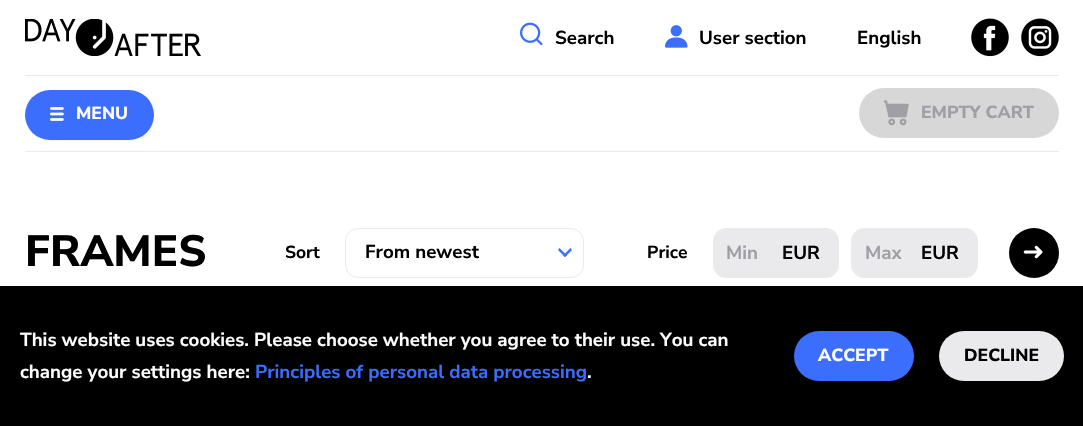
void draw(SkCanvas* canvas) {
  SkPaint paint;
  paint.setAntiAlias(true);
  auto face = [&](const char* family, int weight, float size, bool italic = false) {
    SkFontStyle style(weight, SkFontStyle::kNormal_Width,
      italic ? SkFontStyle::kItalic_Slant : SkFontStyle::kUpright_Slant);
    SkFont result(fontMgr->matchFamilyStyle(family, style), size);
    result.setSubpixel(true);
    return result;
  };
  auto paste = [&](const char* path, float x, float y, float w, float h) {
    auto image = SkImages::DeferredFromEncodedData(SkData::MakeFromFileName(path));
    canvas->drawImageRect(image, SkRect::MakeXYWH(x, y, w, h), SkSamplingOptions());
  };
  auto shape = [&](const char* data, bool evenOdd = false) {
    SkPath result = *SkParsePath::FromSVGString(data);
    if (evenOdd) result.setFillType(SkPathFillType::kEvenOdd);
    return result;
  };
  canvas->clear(0xffffffff);
  paste("img/1.png", 25, 19, 176, 37);
  paste("img/2.png", 520, 22, 23, 24);
  paste("img/3.png", 665, 25, 23, 23);
  paste("img/4.png", 971, 18, 38, 39);
  paste("img/5.png", 1021, 18, 38, 39);
  paint.setColor(0xffeaeaec);
  canvas->drawRect(SkRect::MakeXYWH(25, 75, 1034, 1), paint);
  paint.setColor(0xff3c6efe);
  canvas->drawRoundRect(SkRect::MakeXYWH(25, 90, 129, 50), 25, 25, paint);
  paste("img/6.png", 50, 107, 14, 14);
  paint.setColor(0xffd7d7d7);
  canvas->drawRoundRect(SkRect::MakeXYWH(859, 88, 200, 50), 25, 25, paint);
  paste("img/7.png", 883, 100, 26, 26);
  paint.setColor(0xffeaeaec);
  canvas->drawRect(SkRect::MakeXYWH(25, 151, 1034, 1), paint);
  paint.setStroke(true);
  paint.setStrokeWidth(1);
  canvas->drawRoundRect(SkRect::MakeXYWH(345.5f, 228.5f, 238, 49), 12.5f, 12.5f, paint);
  paint.setStroke(false);
  paint.setColor(0xff3c6efe);
  canvas->drawPath(shape("M570.5 248L572 250L565 257L563 255.5Z"), paint);
  canvas->drawPath(shape("M559.5 248L567 255.5L565 257L558 250Z"), paint);
  paint.setColor(0xffeaeaec);
  canvas->drawRoundRect(SkRect::MakeXYWH(713.5f, 228.5f, 125, 49), 12.5f, 12.5f, paint);
  paint.setStroke(true);
  canvas->drawRoundRect(SkRect::MakeXYWH(713.5f, 228.5f, 125, 49), 12.5f, 12.5f, paint);
  paint.setStroke(false);
  canvas->drawRoundRect(SkRect::MakeXYWH(851.5f, 228.5f, 126, 49), 12.5f, 12.5f, paint);
  paint.setStroke(true);
  canvas->drawRoundRect(SkRect::MakeXYWH(851.5f, 228.5f, 126, 49), 12.5f, 12.5f, paint);
  paint.setStroke(false);
  paint.setColor(0xff000000);
  canvas->drawCircle(1034, 253, 25, paint);
  paste("img/8.png", 1023, 245, 20, 14);
  canvas->drawRect(SkRect::MakeXYWH(0, 286, 1083, 140), paint);
  paint.setColor(0xff3c6efe);
  canvas->drawRoundRect(SkRect::MakeXYWH(794, 331, 120, 50), 25, 25, paint);
  paint.setColor(0xffeaeaec);
  canvas->drawRoundRect(SkRect::MakeXYWH(939, 331, 125, 50), 25, 25, paint);
  auto f0 = face("Nunito Sans", 700, 18.75f);
  paint.setColor(0xff000000);
  {
    const struct { const char* s; float x, y; } items[] = {
      {"Search", 555, 44},
      {"User section", 699, 44},
      {"English", 857, 44},
    };
    for (auto [s, x, y] : items) {
      canvas->drawString(s, x, y, f0, paint);
    }
  }
  auto f1 = face("Nunito Sans", 800, 17.5f);
  paint.setColor(0xffffffff);
  canvas->drawString("MENU", 76, 119, f1, paint);
  paint.setColor(0xff9f9fa4);
  canvas->drawString("EMPTY CART", 921, 118, f1, paint);
  auto f2 = face("Nunito Sans", 800, 43.75f);
  paint.setColor(0xff000000);
  canvas->drawString("FRAMES", 25, 266, f2, paint);
  auto f3 = face("Nunito Sans", 700, 17.5f);
  canvas->drawString("Sort", 285, 258, f3, paint);
  canvas->drawString("From newest", 365, 258, f0, paint);
  canvas->drawString("Price", 647, 258, f3, paint);
  paint.setColor(0xff9f9fa4);
  canvas->drawString("Min", 726, 259, f0, paint);
  paint.setColor(0xff000000);
  canvas->drawString("EUR", 782, 259, f0, paint);
  paint.setColor(0xff9f9fa4);
  canvas->drawString("Max", 865, 259, f0, paint);
  paint.setColor(0xff000000);
  canvas->drawString("EUR", 921, 259, f0, paint);
  paint.setColor(0xffffffff);
  canvas->drawString("This website uses cookies. Please choose whether you agree to their use. You can", 20, 346, f0, paint);
  canvas->drawString("change your settings here:", 20, 378, f0, paint);
  paint.setColor(0xff3c6efe);
  canvas->drawString("Principles of personal data processing", 255, 378, f0, paint);
  paint.setColor(0xffffffff);
  canvas->drawString(".", 587, 378, f0, paint);
  canvas->drawString("ACCEPT", 818, 361, f1, paint);
  paint.setColor(0xff000000);
  canvas->drawString("DECLINE", 964, 361, f1, paint);
}
